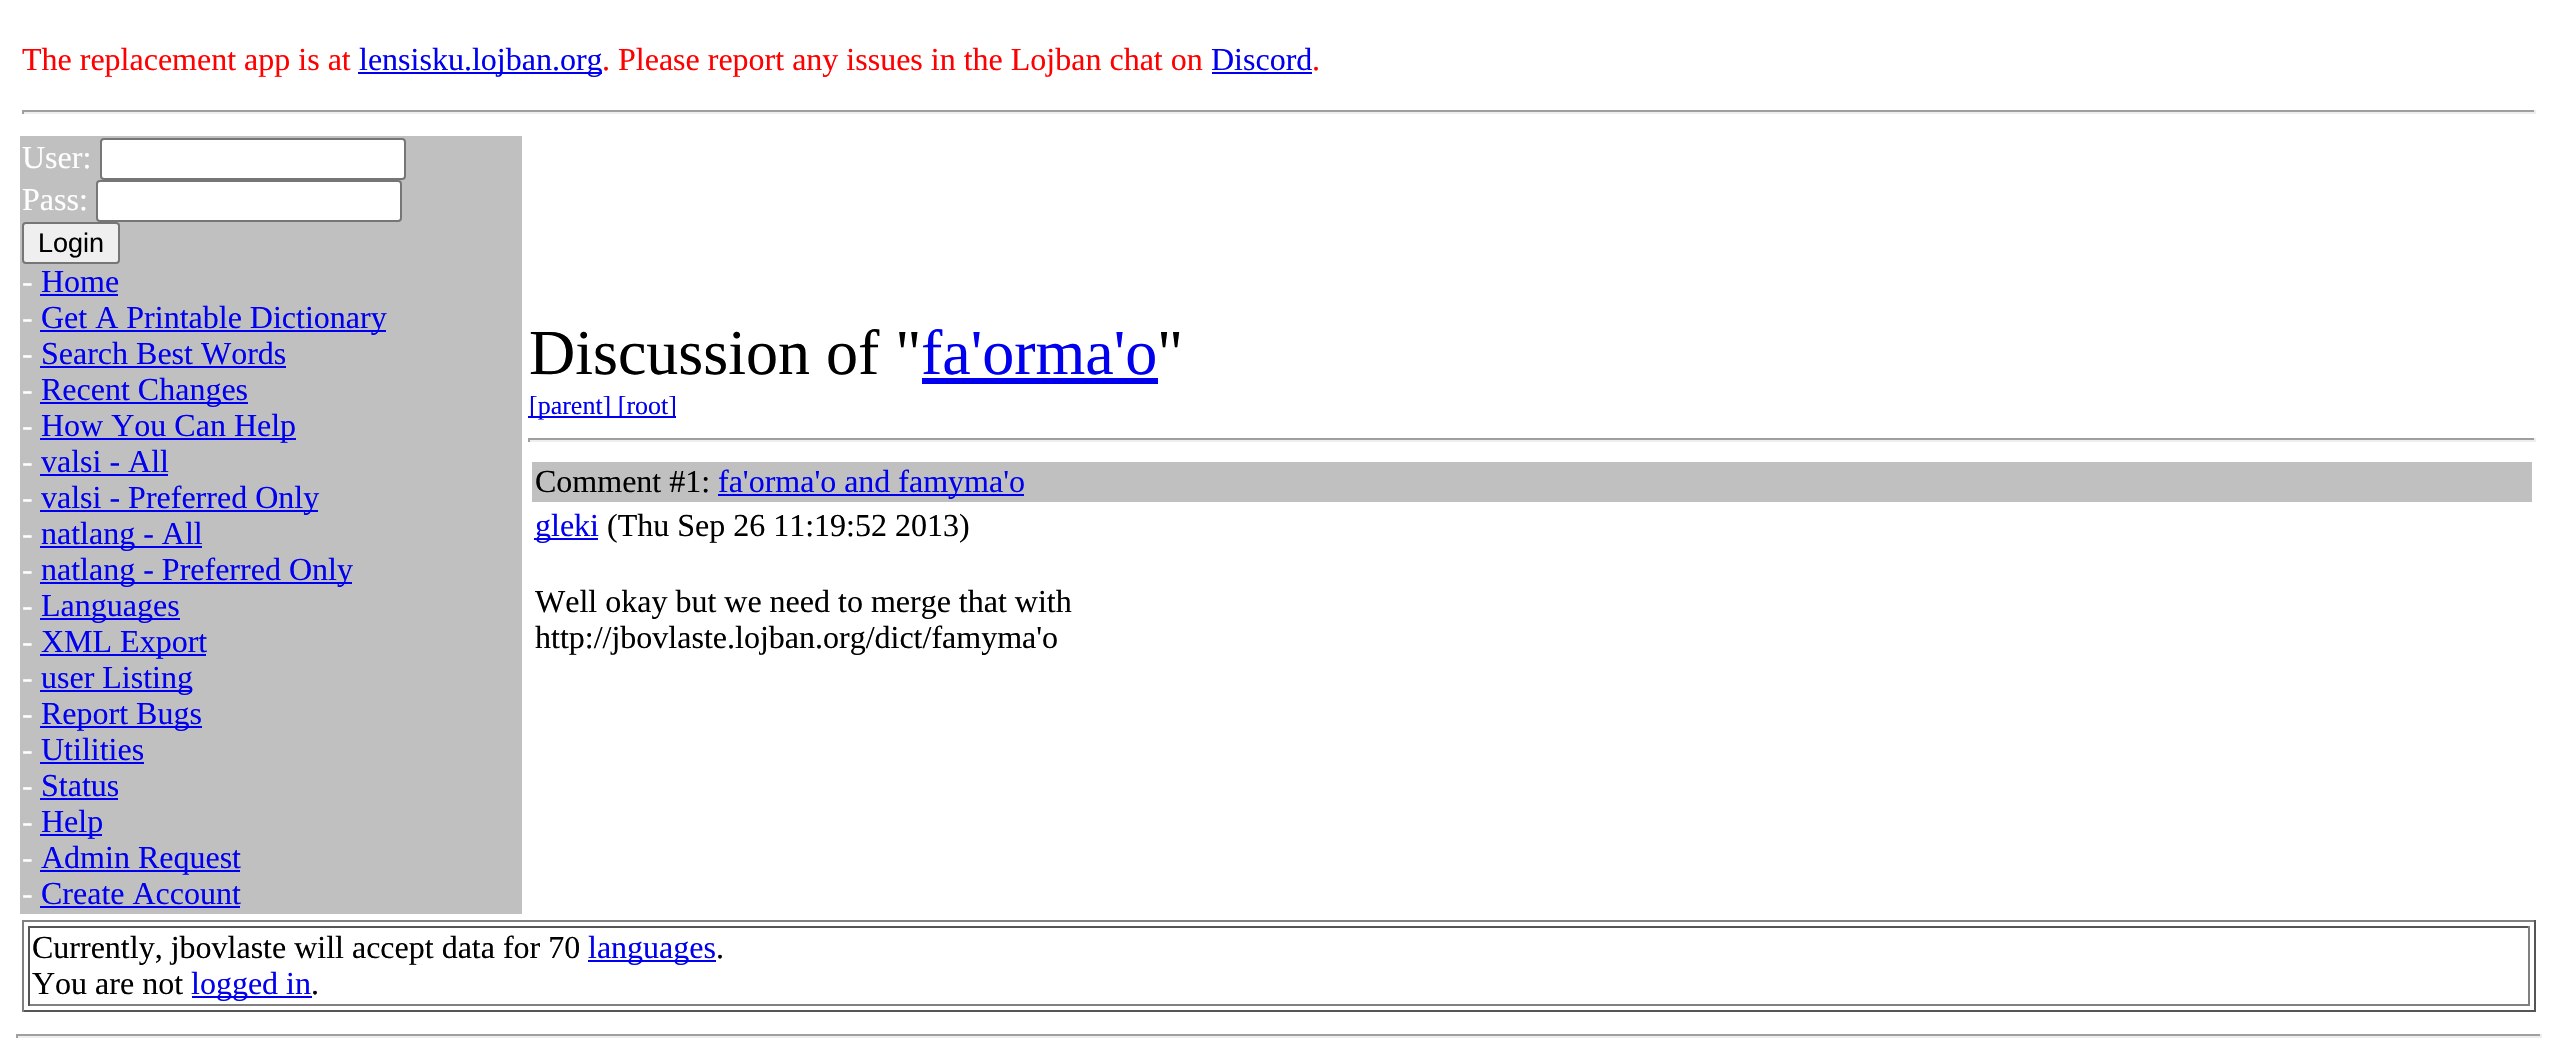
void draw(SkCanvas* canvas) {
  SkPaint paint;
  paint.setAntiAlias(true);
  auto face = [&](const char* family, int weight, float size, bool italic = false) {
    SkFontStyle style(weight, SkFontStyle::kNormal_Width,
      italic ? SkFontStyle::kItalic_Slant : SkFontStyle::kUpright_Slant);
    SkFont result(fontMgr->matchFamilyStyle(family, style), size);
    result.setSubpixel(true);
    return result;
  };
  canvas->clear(0xffffffff);
  {
    const struct { float x, y, w, h; SkColor color; } items[] = {
      {358, 72, 244, 2, 0xff0000ee},
      {1212, 72, 100, 2, 0xff0000ee},
      {22, 110, 2514, 2, 0xff9f9f9f},
      {2534, 110, 2, 4, 0xffeeeeee},
      {22, 112, 2514, 2, 0xffeeeeee},
      {22, 110, 2, 4, 0xff9f9f9f},
      {20, 136, 502, 778, 0xffc0c0c0},
    };
    for (auto [x, y, w, h, color] : items) {
      paint.setColor(color);
      canvas->drawRect(SkRect::MakeXYWH(x, y, w, h), paint);
    }
  }
  paint.setColor(0xffffffff);
  canvas->drawRoundRect(SkRect::MakeXYWH(101, 139, 304, 40), 3, 3, paint);
  paint.setStroke(true);
  paint.setStrokeWidth(2);
  paint.setColor(0xff767676);
  canvas->drawRoundRect(SkRect::MakeXYWH(101, 139, 304, 40), 3, 3, paint);
  paint.setStroke(false);
  paint.setColor(0xffffffff);
  canvas->drawRoundRect(SkRect::MakeXYWH(97, 181, 304, 40), 3, 3, paint);
  paint.setStroke(true);
  paint.setColor(0xff767676);
  canvas->drawRoundRect(SkRect::MakeXYWH(97, 181, 304, 40), 3, 3, paint);
  paint.setStroke(false);
  paint.setColor(0xffefefef);
  canvas->drawRoundRect(SkRect::MakeXYWH(23, 223, 96, 40), 3, 3, paint);
  paint.setStroke(true);
  paint.setColor(0xff767676);
  canvas->drawRoundRect(SkRect::MakeXYWH(23, 223, 96, 40), 3, 3, paint);
  paint.setStroke(false);
  {
    const struct { float x, y, w, h; SkColor color; } items[] = {
      {40, 294, 78, 2, 0xff0000ee},
      {40, 330, 346, 2, 0xff0000ee},
      {40, 366, 246, 2, 0xff0000ee},
      {40, 402, 208, 2, 0xff0000ee},
      {40, 438, 256, 2, 0xff0000ee},
      {40, 474, 128, 2, 0xff0000ee},
      {40, 510, 278, 2, 0xff0000ee},
      {40, 546, 162, 2, 0xff0000ee},
      {40, 582, 312, 2, 0xff0000ee},
      {40, 618, 140, 2, 0xff0000ee},
      {40, 654, 166, 2, 0xff0000ee},
      {40, 690, 152, 2, 0xff0000ee},
      {40, 726, 162, 2, 0xff0000ee},
      {40, 762, 104, 2, 0xff0000ee},
      {40, 798, 78, 2, 0xff0000ee},
      {40, 834, 62, 2, 0xff0000ee},
      {40, 870, 200, 2, 0xff0000ee},
      {40, 906, 200, 2, 0xff0000ee},
      {922, 378, 236, 6, 0xff0000ee},
      {528, 416, 148, 2, 0xff0000ee},
      {528, 438, 2008, 2, 0xff9f9f9f},
      {2534, 438, 2, 4, 0xffeeeeee},
      {528, 440, 2008, 2, 0xffeeeeee},
      {528, 438, 2, 4, 0xff9f9f9f},
      {532, 462, 2000, 40, 0xffc0c0c0},
      {718, 494, 306, 2, 0xff0000ee},
      {534, 538, 64, 2, 0xff0000ee},
      {22, 920, 2514, 2, 0xff808080},
      {2534, 920, 2, 92, 0xff555555},
      {22, 1010, 2514, 2, 0xff555555},
      {22, 920, 2, 92, 0xff808080},
      {28, 926, 2502, 2, 0xff555555},
      {2528, 926, 2, 80, 0xff808080},
      {28, 1004, 2502, 2, 0xff808080},
      {28, 926, 2, 80, 0xff555555},
      {588, 960, 128, 2, 0xff0000ee},
      {192, 996, 120, 2, 0xff0000ee},
      {16, 1034, 2526, 2, 0xff9f9f9f},
      {2540, 1034, 2, 4, 0xffeeeeee},
      {16, 1036, 2526, 2, 0xffeeeeee},
      {16, 1034, 2, 4, 0xff9f9f9f},
    };
    for (auto [x, y, w, h, color] : items) {
      paint.setColor(color);
      canvas->drawRect(SkRect::MakeXYWH(x, y, w, h), paint);
    }
  }
  auto f0 = face("Liberation Serif", 400, 32);
  paint.setColor(0xffff0000);
  canvas->drawString("The replacement app is at", 22, 70, f0, paint);
  paint.setColor(0xff0000ee);
  canvas->drawString("lensisku.lojban.org", 359, 70, f0, paint);
  paint.setColor(0xffff0000);
  canvas->drawString(". Please report any issues in the Lojban chat on", 602, 70, f0, paint);
  paint.setColor(0xff0000ee);
  canvas->drawString("Discord", 1211, 70, f0, paint);
  paint.setColor(0xffff0000);
  canvas->drawString(".", 1312, 70, f0, paint);
  paint.setColor(0xffffffff);
  canvas->drawString("User:", 22, 168, f0, paint);
  canvas->drawString("Pass:", 22, 210, f0, paint);
  auto f1 = face("Liberation Sans", 400, 27);
  paint.setColor(0xff000000);
  canvas->drawString("Login", 38, 252, f1, paint);
  paint.setColor(0xffffffff);
  canvas->drawString("-", 22, 292, f0, paint);
  paint.setColor(0xff0000ee);
  canvas->drawString("Home", 41, 292, f0, paint);
  paint.setColor(0xffffffff);
  canvas->drawString("-", 22, 328, f0, paint);
  paint.setColor(0xff0000ee);
  canvas->drawString("Get A Printable Dictionary", 41, 328, f0, paint);
  paint.setColor(0xffffffff);
  canvas->drawString("-", 22, 364, f0, paint);
  paint.setColor(0xff0000ee);
  canvas->drawString("Search Best Words", 41, 364, f0, paint);
  paint.setColor(0xffffffff);
  canvas->drawString("-", 22, 400, f0, paint);
  paint.setColor(0xff0000ee);
  canvas->drawString("Recent Changes", 41, 400, f0, paint);
  paint.setColor(0xffffffff);
  canvas->drawString("-", 22, 436, f0, paint);
  paint.setColor(0xff0000ee);
  canvas->drawString("How You Can Help", 41, 436, f0, paint);
  paint.setColor(0xffffffff);
  canvas->drawString("-", 22, 472, f0, paint);
  paint.setColor(0xff0000ee);
  canvas->drawString("valsi - All", 41, 472, f0, paint);
  paint.setColor(0xffffffff);
  canvas->drawString("-", 22, 508, f0, paint);
  paint.setColor(0xff0000ee);
  canvas->drawString("valsi - Preferred Only", 41, 508, f0, paint);
  paint.setColor(0xffffffff);
  canvas->drawString("-", 22, 544, f0, paint);
  paint.setColor(0xff0000ee);
  canvas->drawString("natlang - All", 41, 544, f0, paint);
  paint.setColor(0xffffffff);
  canvas->drawString("-", 22, 580, f0, paint);
  paint.setColor(0xff0000ee);
  canvas->drawString("natlang - Preferred Only", 41, 580, f0, paint);
  paint.setColor(0xffffffff);
  canvas->drawString("-", 22, 616, f0, paint);
  paint.setColor(0xff0000ee);
  canvas->drawString("Languages", 41, 616, f0, paint);
  paint.setColor(0xffffffff);
  canvas->drawString("-", 22, 652, f0, paint);
  paint.setColor(0xff0000ee);
  canvas->drawString("XML Export", 41, 652, f0, paint);
  paint.setColor(0xffffffff);
  canvas->drawString("-", 22, 688, f0, paint);
  paint.setColor(0xff0000ee);
  canvas->drawString("user Listing", 41, 688, f0, paint);
  paint.setColor(0xffffffff);
  canvas->drawString("-", 22, 724, f0, paint);
  paint.setColor(0xff0000ee);
  canvas->drawString("Report Bugs", 41, 724, f0, paint);
  paint.setColor(0xffffffff);
  canvas->drawString("-", 22, 760, f0, paint);
  paint.setColor(0xff0000ee);
  canvas->drawString("Utilities", 41, 760, f0, paint);
  paint.setColor(0xffffffff);
  canvas->drawString("-", 22, 796, f0, paint);
  paint.setColor(0xff0000ee);
  canvas->drawString("Status", 41, 796, f0, paint);
  paint.setColor(0xffffffff);
  canvas->drawString("-", 22, 832, f0, paint);
  paint.setColor(0xff0000ee);
  canvas->drawString("Help", 41, 832, f0, paint);
  paint.setColor(0xffffffff);
  canvas->drawString("-", 22, 868, f0, paint);
  paint.setColor(0xff0000ee);
  canvas->drawString("Admin Request", 41, 868, f0, paint);
  paint.setColor(0xffffffff);
  canvas->drawString("-", 22, 904, f0, paint);
  paint.setColor(0xff0000ee);
  canvas->drawString("Create Account", 41, 904, f0, paint);
  auto f2 = face("Liberation Serif", 400, 64);
  paint.setColor(0xff000000);
  canvas->drawString("Discussion of \"", 529, 374, f2, paint);
  paint.setColor(0xff0000ee);
  canvas->drawString("fa'orma'o", 921, 374, f2, paint);
  paint.setColor(0xff000000);
  canvas->drawString("\"", 1157, 374, f2, paint);
  auto f3 = face("Liberation Serif", 400, 26);
  paint.setColor(0xff0000ee);
  canvas->drawString("[parent] [root]", 529, 414, f3, paint);
  paint.setColor(0xff000000);
  canvas->drawString("Comment #1:", 535, 492, f0, paint);
  paint.setColor(0xff0000ee);
  canvas->drawString("fa'orma'o and famyma'o", 718, 492, f0, paint);
  canvas->drawString("gleki", 535, 536, f0, paint);
  paint.setColor(0xff000000);
  {
    const struct { const char* s; float x, y; } items[] = {
      {"(Thu Sep 26 11:19:52 2013)", 607, 536},
      {"Well okay but we need to merge that with", 535, 612},
      {"http://jbovlaste.lojban.org/dict/famyma'o", 535, 648},
      {"Currently, jbovlaste will accept data for 70", 32, 958},
    };
    for (auto [s, x, y] : items) {
      canvas->drawString(s, x, y, f0, paint);
    }
  }
  paint.setColor(0xff0000ee);
  canvas->drawString("languages", 588, 958, f0, paint);
  paint.setColor(0xff000000);
  canvas->drawString(".", 716, 958, f0, paint);
  canvas->drawString("You are not", 32, 994, f0, paint);
  paint.setColor(0xff0000ee);
  canvas->drawString("logged in", 191, 994, f0, paint);
  paint.setColor(0xff000000);
  canvas->drawString(".", 311, 994, f0, paint);
}
